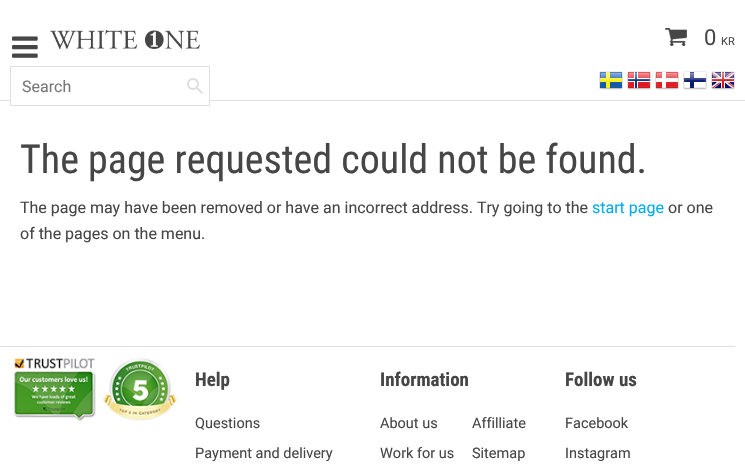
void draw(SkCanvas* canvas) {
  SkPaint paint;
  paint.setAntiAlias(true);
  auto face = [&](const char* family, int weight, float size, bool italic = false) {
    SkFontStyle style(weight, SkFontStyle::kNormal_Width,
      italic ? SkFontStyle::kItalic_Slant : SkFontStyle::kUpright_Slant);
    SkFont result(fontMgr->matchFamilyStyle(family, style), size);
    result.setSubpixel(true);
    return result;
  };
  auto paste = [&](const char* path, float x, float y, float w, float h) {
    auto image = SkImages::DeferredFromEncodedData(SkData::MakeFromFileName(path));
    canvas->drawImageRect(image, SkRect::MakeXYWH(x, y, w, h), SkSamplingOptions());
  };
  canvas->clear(0xffffffff);
  paint.setColor(0xffdfdfdf);
  canvas->drawRect(SkRect::MakeXYWH(0, 100, 745, 1), paint);
  paste("img/1.png", 665, 28, 22, 18);
  paint.setColor(0xffffffff);
  canvas->drawRect(SkRect::MakeXYWH(11, 100, 198, 1), paint);
  paint.setStroke(true);
  paint.setStrokeWidth(1);
  paint.setColor(0xffdfdfdf);
  canvas->drawRect(SkRect::MakeXYWH(10.5f, 66.5f, 199, 39), paint);
  paste("img/2.png", 187, 78, 16, 16);
  paste("img/3.png", 599, 71, 24, 19);
  paste("img/4.png", 627, 71, 24, 19);
  paste("img/5.png", 655, 71, 24, 19);
  paste("img/6.png", 683, 71, 24, 19);
  paste("img/7.png", 711, 71, 24, 19);
  paste("img/8.png", 50, 30, 150, 19);
  paste("img/9.png", 12, 36, 26, 22);
  paint.setStroke(false);
  canvas->drawRect(SkRect::MakeXYWH(0, 346, 735, 1), paint);
  paste("img/10.png", 13, 358, 165, 64);
  auto f0 = face("Roboto", 400, 22);
  paint.setColor(0xff464646);
  canvas->drawString("0", 704, 45, f0, paint);
  auto f1 = face("Roboto", 400, 11);
  canvas->drawString("KR", 721, 45, f1, paint);
  auto f2 = face("Roboto", 400, 16);
  paint.setColor(0xff787878);
  canvas->drawString("Search", 22, 92, f2, paint);
  auto f3 = face("Roboto Condensed", 400, 40);
  paint.setColor(0xff464646);
  canvas->drawString("The page requested could not be found.", 20, 173, f3, paint);
  canvas->drawString("The page may have been removed or have an incorrect address. Try going to the", 20, 213, f2, paint);
  paint.setColor(0xff00aeef);
  canvas->drawString("start page", 592, 213, f2, paint);
  paint.setColor(0xff464646);
  canvas->drawString("or one", 668, 213, f2, paint);
  canvas->drawString("of the pages on the menu.", 20, 239, f2, paint);
  auto f4 = face("Roboto Condensed", 700, 19);
  canvas->drawString("Help", 195, 386, f4, paint);
  auto f5 = face("Roboto", 400, 14.5f);
  canvas->drawString("Questions", 195, 428, f5, paint);
  canvas->drawString("Payment and delivery", 195, 458, f5, paint);
  canvas->drawString("Information", 380, 386, f4, paint);
  {
    const struct { const char* s; float x, y; } items[] = {
      {"About us", 380, 428},
      {"Affilliate", 472, 428},
      {"Work for us", 380, 458},
      {"Sitemap", 472, 458},
    };
    for (auto [s, x, y] : items) {
      canvas->drawString(s, x, y, f5, paint);
    }
  }
  canvas->drawString("Follow us", 565, 386, f4, paint);
  canvas->drawString("Facebook", 565, 428, f5, paint);
  canvas->drawString("Instagram", 565, 458, f5, paint);
}
